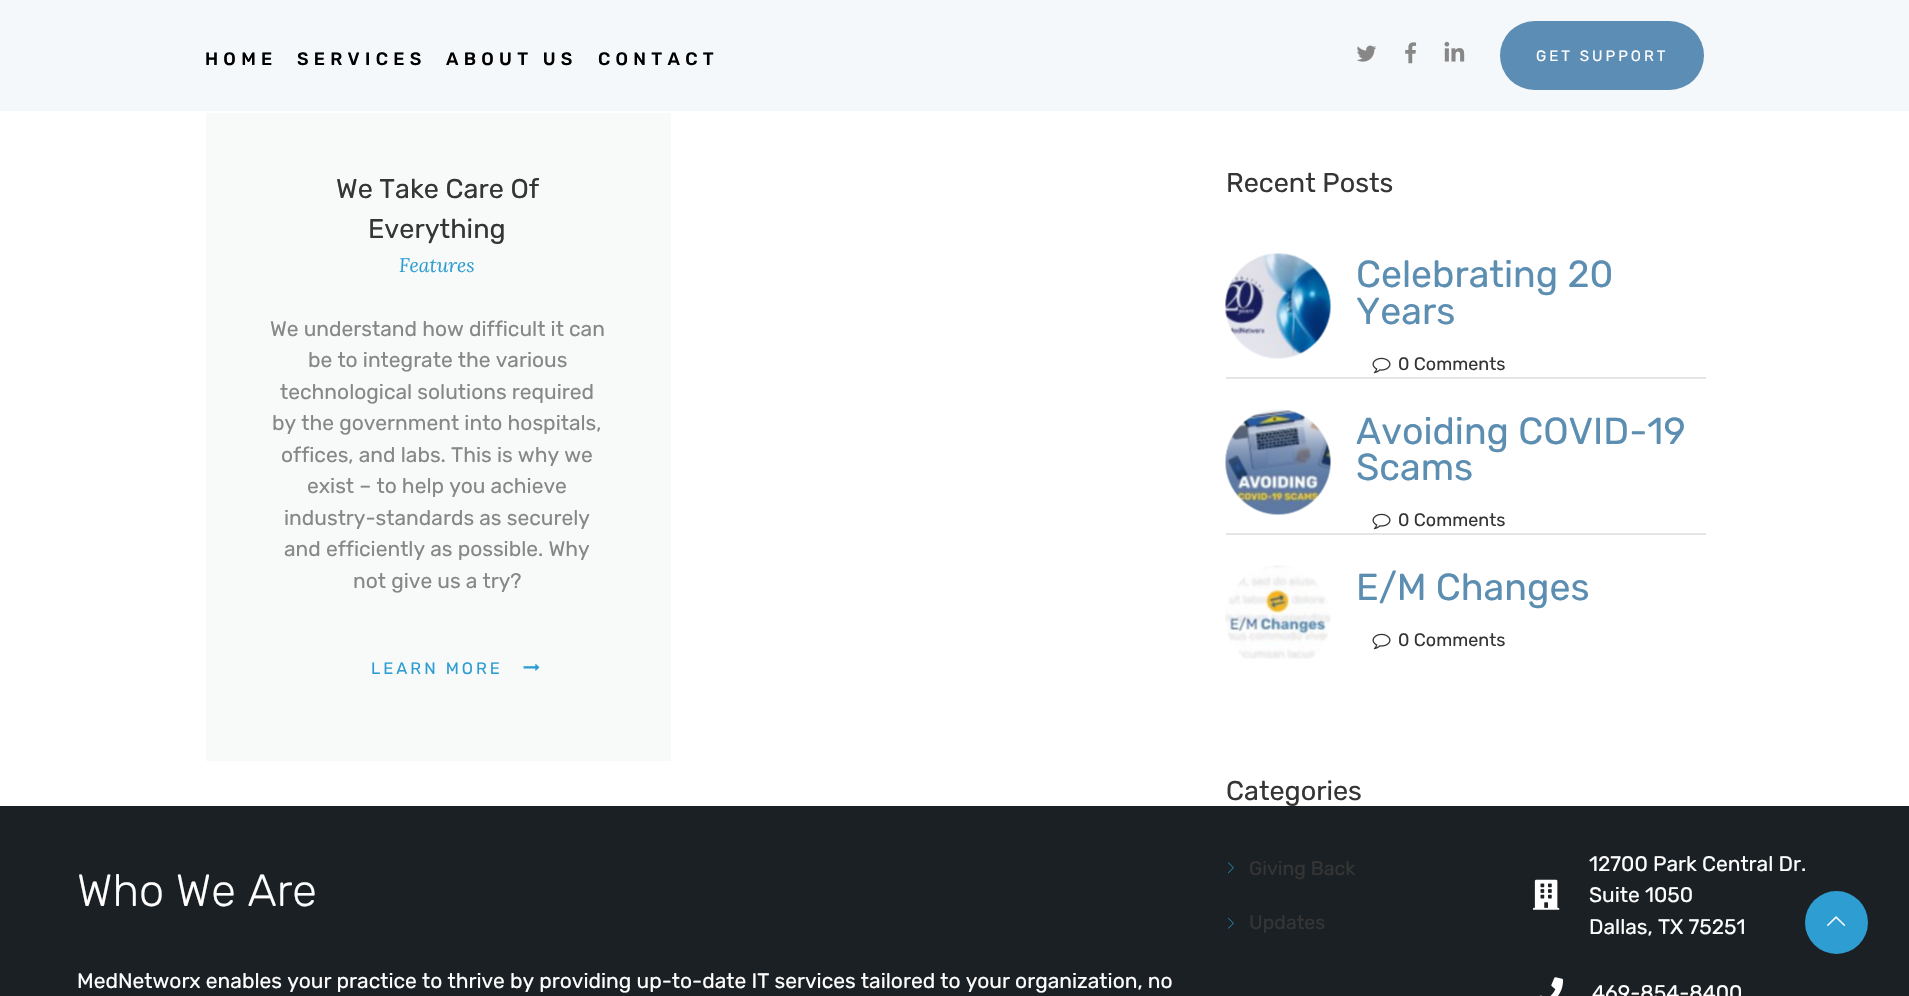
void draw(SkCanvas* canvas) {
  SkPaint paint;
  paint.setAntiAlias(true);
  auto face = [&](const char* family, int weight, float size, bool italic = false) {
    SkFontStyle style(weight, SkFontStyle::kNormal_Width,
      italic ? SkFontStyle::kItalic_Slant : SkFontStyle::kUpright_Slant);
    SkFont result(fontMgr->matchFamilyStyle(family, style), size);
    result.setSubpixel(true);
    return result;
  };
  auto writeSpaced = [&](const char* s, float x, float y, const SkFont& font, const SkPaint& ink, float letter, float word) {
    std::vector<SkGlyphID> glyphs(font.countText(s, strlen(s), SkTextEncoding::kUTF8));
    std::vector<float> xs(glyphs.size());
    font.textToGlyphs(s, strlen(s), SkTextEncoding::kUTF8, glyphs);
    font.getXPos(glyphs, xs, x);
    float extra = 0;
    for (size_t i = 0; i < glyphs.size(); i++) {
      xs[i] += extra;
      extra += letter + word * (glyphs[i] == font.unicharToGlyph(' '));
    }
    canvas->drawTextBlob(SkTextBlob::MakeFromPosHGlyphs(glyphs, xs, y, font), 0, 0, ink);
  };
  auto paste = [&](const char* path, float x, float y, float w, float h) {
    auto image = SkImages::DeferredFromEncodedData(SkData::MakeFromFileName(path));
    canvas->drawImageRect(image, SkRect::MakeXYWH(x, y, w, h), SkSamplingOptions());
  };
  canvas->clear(0xffffffff);
  paint.setColor(0xfff5f8fa);
  canvas->drawRect(SkRect::MakeXYWH(0, 0, 1909, 111), paint);
  paste("img/1.png", 1356, 45, 21, 17);
  paste("img/2.png", 1405, 42, 12, 22);
  paste("img/3.png", 1444, 41, 21, 21);
  paint.setColor(0xff5c8db4);
  canvas->drawRoundRect(SkRect::MakeXYWH(1500, 21, 204, 69), 34.5f, 34.5f, paint);
  paint.setColor(0xfff8fafa);
  canvas->drawRect(SkRect::MakeXYWH(206, 113, 465, 648), paint);
  paste("img/4.png", 523, 663, 17, 8);
  paste("img/5.png", 1225, 253, 106, 106);
  paste("img/6.png", 1372, 357, 19, 17);
  paint.setColor(0xffe5e5e5);
  canvas->drawRect(SkRect::MakeXYWH(1226, 377, 480, 2), paint);
  paste("img/7.png", 1225, 409, 106, 106);
  paste("img/6.png", 1372, 513, 19, 17);
  canvas->drawRect(SkRect::MakeXYWH(1226, 533, 480, 2), paint);
  paste("img/8.png", 1225, 565, 106, 94);
  paste("img/6.png", 1372, 633, 19, 17);
  paint.setColor(0xff1b2024);
  canvas->drawRect(SkRect::MakeXYWH(0, 806, 1909, 190), paint);
  paste("img/9.png", 1228, 862, 6, 12);
  paste("img/10.png", 1228, 917, 6, 12);
  paste("img/11.png", 1533, 879, 27, 31);
  paste("img/12.png", 1539, 977, 25, 19);
  paint.setColor(0xff2e9dd1);
  canvas->drawCircle(1836.5f, 922.5f, 31.5f, paint);
  paste("img/13.png", 1827, 916, 19, 10);
  auto f0 = face("Rubik", 500, 18);
  paint.setColor(0xff000000);
  {
    const struct { const char* s; float x, y; } items[] = {
      {"HOME", 205, 65},
      {"SERVICES", 297, 65},
      {"ABOUT US", 446, 65},
      {"CONTACT", 598, 65},
    };
    for (auto [s, x, y] : items) {
      writeSpaced(s, x, y, f0, paint, 5.25f, 0);
    }
  }
  auto f1 = face("Rubik", 400, 15);
  paint.setColor(0xffffffff);
  writeSpaced("GET SUPPORT", 1536, 61, f1, paint, 3, 0);
  auto f2 = face("Rubik", 400, 27);
  paint.setColor(0xff353535);
  canvas->drawString("We Take Care Of", 336, 198, f2, paint);
  canvas->drawString("Everything", 368, 238, f2, paint);
  auto f3 = face("Lora", 400, 19.5f, true);
  paint.setColor(0xff2e9dd1);
  canvas->drawString("Features", 399, 272, f3, paint);
  auto f4 = face("Rubik", 400, 21);
  paint.setColor(0xff878787);
  {
    const struct { const char* s; float x, y; } items[] = {
      {"We understand how difficult it can", 270, 336},
      {"be to integrate the various", 308, 367},
      {"technological solutions required", 280, 399},
      {"by the government into hospitals,", 272, 430},
      {"offices, and labs. This is why we", 281, 462},
      {"exist – to help you achieve", 307, 493},
      {"industry-standards as securely", 284, 525},
      {"and efficiently as possible. Why", 284, 556},
      {"not give us a try?", 353, 588},
    };
    for (auto [s, x, y] : items) {
      canvas->drawString(s, x, y, f4, paint);
    }
  }
  auto f5 = face("Rubik", 400, 16.5f);
  paint.setColor(0xff2e9dd1);
  writeSpaced("LEARN MORE", 371, 674, f5, paint, 3, 0);
  paint.setColor(0xff353535);
  canvas->drawString("Recent Posts", 1226, 192, f2, paint);
  auto f6 = face("Rubik", 400, 37.5f);
  paint.setColor(0xff5c8eb2);
  canvas->drawString("Celebrating 20", 1356, 287, f6, paint);
  canvas->drawString("Years", 1356, 324, f6, paint);
  auto f7 = face("Rubik", 400, 18);
  paint.setColor(0xff353535);
  canvas->drawString("0 Comments", 1398, 370, f7, paint);
  paint.setColor(0xff5c8eb2);
  canvas->drawString("Avoiding COVID-19", 1356, 444, f6, paint);
  canvas->drawString("Scams", 1356, 480, f6, paint);
  paint.setColor(0xff353535);
  canvas->drawString("0 Comments", 1398, 526, f7, paint);
  paint.setColor(0xff5c8eb2);
  canvas->drawString("E/M Changes", 1356, 600, f6, paint);
  paint.setColor(0xff353535);
  canvas->drawString("0 Comments", 1398, 646, f7, paint);
  canvas->drawString("Categories", 1226, 800, f2, paint);
  auto f8 = face("Rubik", 400, 19.5f);
  canvas->drawString("Giving Back", 1249, 875, f8, paint);
  canvas->drawString("Updates", 1249, 929, f8, paint);
  auto f9 = face("Rubik", 300, 45);
  paint.setColor(0xffffffff);
  canvas->drawString("Who We Are", 77, 906, f9, paint);
  {
    const struct { const char* s; float x, y; } items[] = {
      {"MedNetworx enables your practice to thrive by providing up-to-date IT services tailored to your organization, no", 77, 988},
      {"12700 Park Central Dr.", 1589, 871},
      {"Suite 1050", 1589, 902},
      {"Dallas, TX 75251", 1589, 934},
      {"469-854-8400", 1592, 1000},
    };
    for (auto [s, x, y] : items) {
      canvas->drawString(s, x, y, f4, paint);
    }
  }
}
